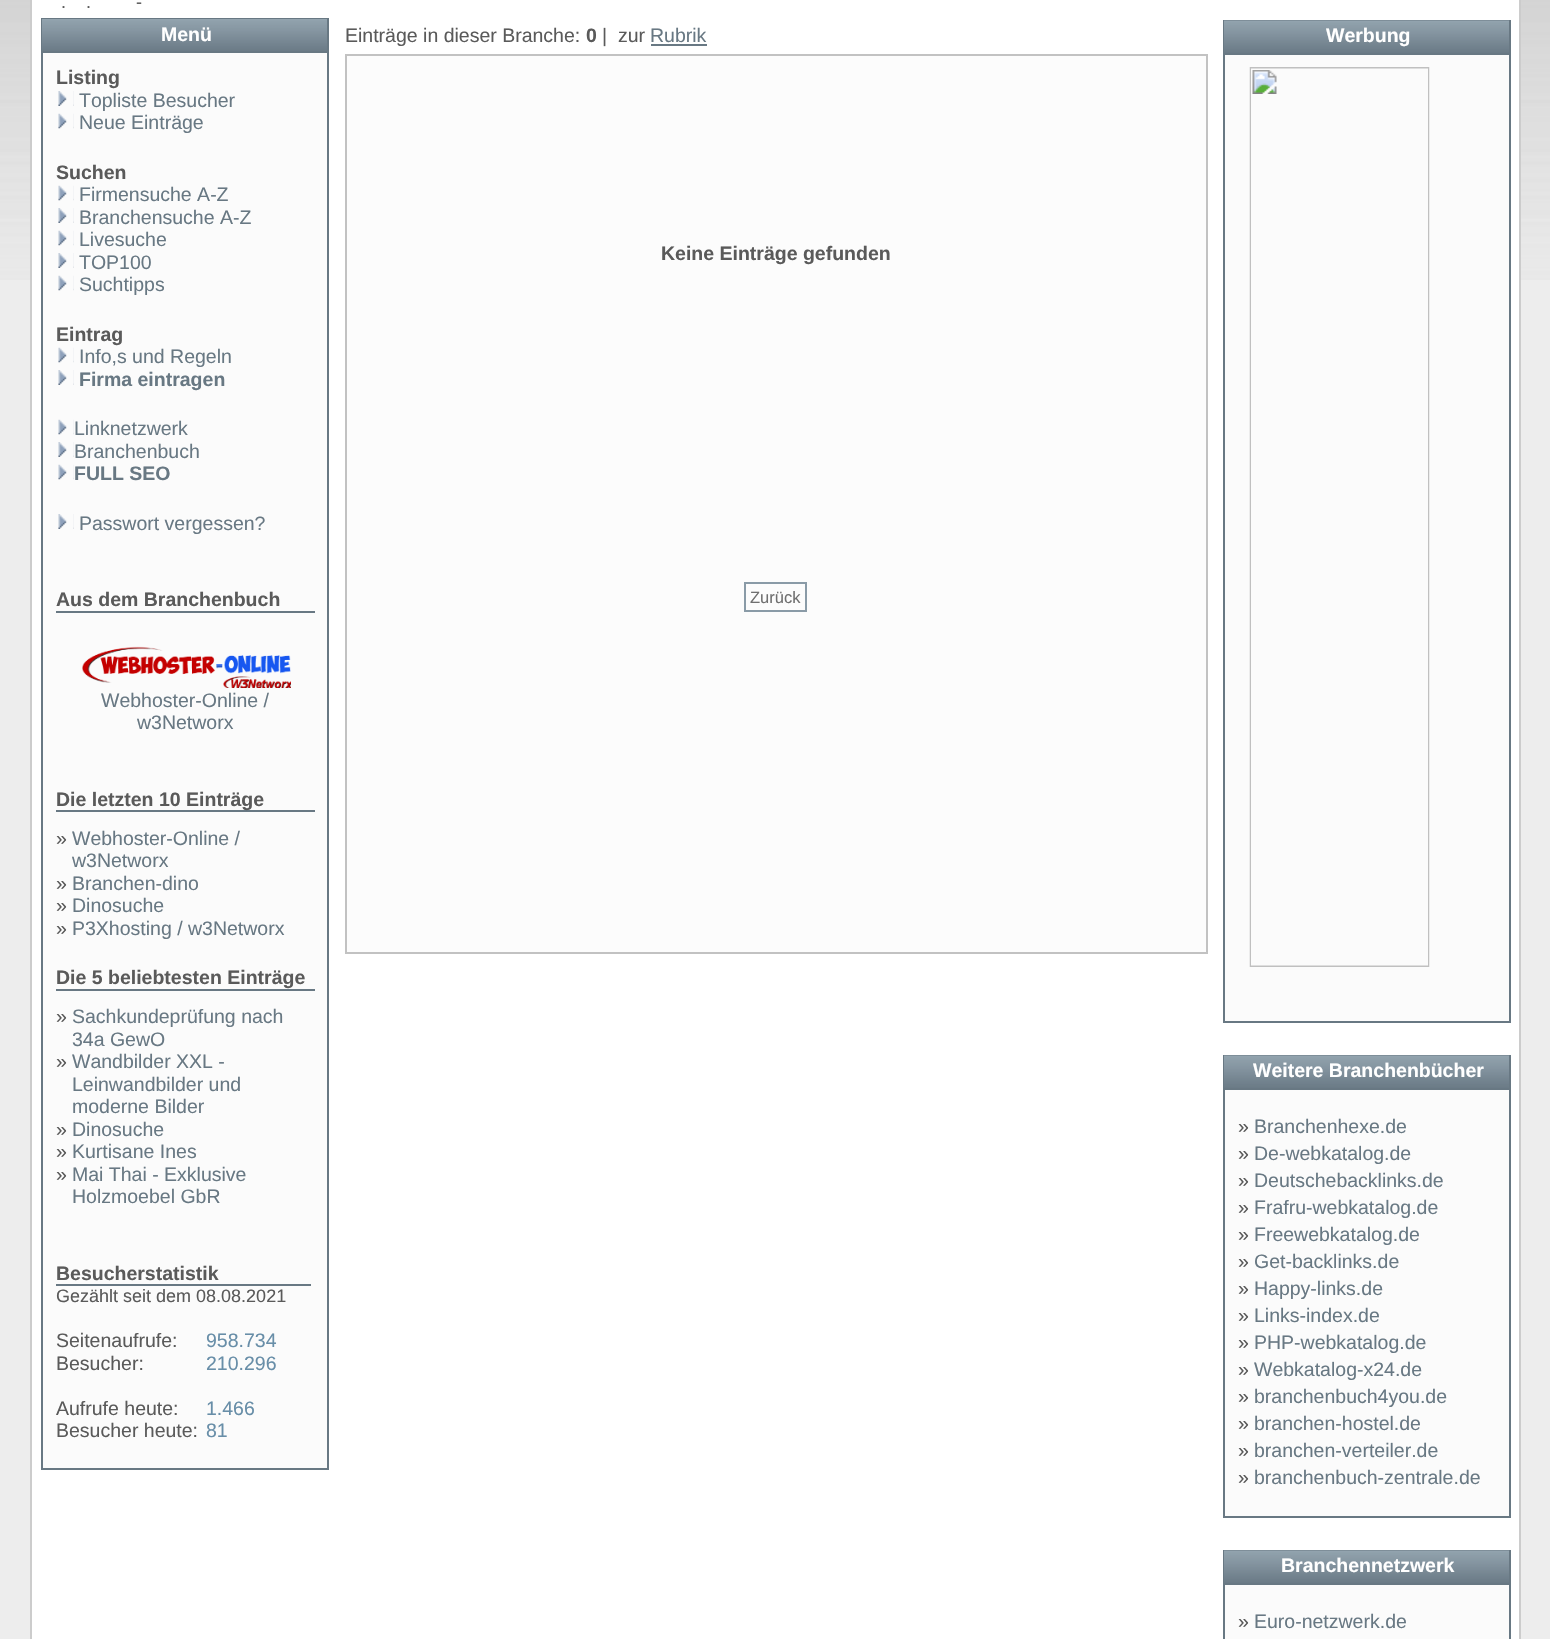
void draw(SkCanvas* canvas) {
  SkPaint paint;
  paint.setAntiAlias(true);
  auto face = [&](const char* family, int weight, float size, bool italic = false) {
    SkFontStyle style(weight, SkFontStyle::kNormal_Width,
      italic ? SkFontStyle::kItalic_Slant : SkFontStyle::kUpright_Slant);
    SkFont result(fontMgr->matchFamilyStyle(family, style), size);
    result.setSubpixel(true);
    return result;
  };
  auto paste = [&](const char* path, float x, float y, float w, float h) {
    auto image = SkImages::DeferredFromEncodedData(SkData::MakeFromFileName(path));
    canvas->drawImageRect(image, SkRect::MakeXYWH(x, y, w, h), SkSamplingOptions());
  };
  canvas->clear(0xffededed);
  paste("img/1.png", 0, 0, 1550, 280);
  paint.setColor(0xffffffff);
  canvas->drawRect(SkRect::MakeXYWH(31, -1, 1489, 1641), paint);
  paint.setStroke(true);
  paint.setStrokeWidth(2);
  paint.setColor(0xffcccccc);
  canvas->drawRect(SkRect::MakeXYWH(31, -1, 1489, 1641), paint);
  paint.setStroke(false);
  paint.setColor(0xfffbfbfb);
  canvas->drawRect(SkRect::MakeXYWH(43, 53, 284, 1415), paint);
  paint.setStroke(true);
  paint.setColor(0xff687883);
  canvas->drawRect(SkRect::MakeXYWH(42, 19, 286, 1450), paint);
  paste("img/2.png", 42, 19, 285, 32);
  paint.setStroke(false);
  canvas->drawRect(SkRect::MakeXYWH(42, 51, 285, 2), paint);
  paste("img/3.png", 58, 91, 16, 15);
  paste("img/4.png", 58, 113, 16, 16);
  paste("img/5.png", 58, 185, 16, 16);
  paste("img/6.png", 58, 208, 16, 15);
  paste("img/5.png", 58, 230, 16, 16);
  paste("img/6.png", 58, 253, 16, 15);
  paste("img/7.png", 58, 275, 16, 16);
  paste("img/8.png", 58, 347, 16, 16);
  paste("img/6.png", 58, 370, 16, 15);
  paste("img/9.png", 58, 419, 16, 16);
  paste("img/6.png", 58, 442, 16, 15);
  paste("img/10.png", 58, 464, 16, 16);
  paste("img/11.png", 58, 514, 16, 15);
  canvas->drawRect(SkRect::MakeXYWH(56, 611, 259, 2), paint);
  paste("img/12.png", 82, 646, 209, 42);
  {
    const struct { float x, y, w, h; SkColor color; } items[] = {
      {56, 810, 259, 2, 0xff687883},
      {56, 989, 259, 2, 0xff687883},
      {56, 1284, 255, 2, 0xff687883},
      {651, 44, 56, 2, 0xff687883},
    };
    for (auto [x, y, w, h, color] : items) {
      paint.setColor(color);
      canvas->drawRect(SkRect::MakeXYWH(x, y, w, h), paint);
    }
  }
  paint.setColor(0xfffcfcfc);
  canvas->drawRect(SkRect::MakeXYWH(346, 55, 861, 898), paint);
  paint.setStroke(true);
  paint.setColor(0xffc2c2c2);
  canvas->drawRect(SkRect::MakeXYWH(346, 55, 861, 898), paint);
  paint.setColor(0xff8a9ba7);
  canvas->drawRect(SkRect::MakeXYWH(745, 583, 61, 28), paint);
  paint.setStroke(false);
  paint.setColor(0xfffbfbfb);
  canvas->drawRect(SkRect::MakeXYWH(1225, 55, 284, 966), paint);
  paint.setStroke(true);
  paint.setColor(0xff687883);
  canvas->drawRect(SkRect::MakeXYWH(1224, 21, 286, 1001), paint);
  paste("img/13.png", 1224, 20, 285, 33);
  paint.setStroke(false);
  canvas->drawRect(SkRect::MakeXYWH(1224, 53, 285, 2), paint);
  paste("img/14.png", 1249, 67, 181, 900);
  paint.setColor(0xfffbfbfb);
  canvas->drawRect(SkRect::MakeXYWH(1225, 1090, 284, 426), paint);
  paint.setStroke(true);
  paint.setColor(0xff687883);
  canvas->drawRect(SkRect::MakeXYWH(1224, 1056, 286, 461), paint);
  paste("img/15.png", 1224, 1055, 285, 33);
  paint.setStroke(false);
  canvas->drawRect(SkRect::MakeXYWH(1224, 1088, 285, 2), paint);
  paint.setColor(0xfffbfbfb);
  canvas->drawRect(SkRect::MakeXYWH(1225, 1585, 284, 54), paint);
  paint.setStroke(true);
  paint.setColor(0xff687883);
  canvas->drawRect(SkRect::MakeXYWH(1224, 1551, 286, 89), paint);
  paste("img/16.png", 1224, 1550, 285, 33);
  paint.setStroke(false);
  canvas->drawRect(SkRect::MakeXYWH(1224, 1583, 285, 2), paint);
  auto f0 = face("Liberation Sans", 400, 18);
  paint.setColor(0xff5a5a5a);
  {
    const struct { const char* s; float x, y; } items[] = {
      {"-", 136, 8},
      {".", 61, 8},
      {".", 86, 8},
    };
    for (auto [s, x, y] : items) {
      canvas->drawString(s, x, y, f0, paint);
    }
  }
  auto f1 = face("Liberation Sans", 700, 19.5f);
  paint.setColor(0xffffffff);
  canvas->drawString("Menü", 161, 41, f1, paint);
  paint.setColor(0xff5a5a5a);
  canvas->drawString("Listing", 56, 84, f1, paint);
  auto f2 = face("Liberation Sans", 400, 19.5f);
  paint.setColor(0xff687883);
  canvas->drawString("Topliste Besucher", 79, 107, f2, paint);
  canvas->drawString("Neue Einträge", 79, 129, f2, paint);
  paint.setColor(0xff5a5a5a);
  canvas->drawString("Suchen", 56, 179, f1, paint);
  paint.setColor(0xff687883);
  {
    const struct { const char* s; float x, y; } items[] = {
      {"Firmensuche A-Z", 79, 201},
      {"Branchensuche A-Z", 79, 224},
      {"Livesuche", 79, 246},
      {"TOP100", 79, 269},
      {"Suchtipps", 79, 291},
    };
    for (auto [s, x, y] : items) {
      canvas->drawString(s, x, y, f2, paint);
    }
  }
  paint.setColor(0xff5a5a5a);
  canvas->drawString("Eintrag", 56, 341, f1, paint);
  paint.setColor(0xff687883);
  canvas->drawString("Info,s und Regeln", 79, 363, f2, paint);
  canvas->drawString("Firma eintragen", 79, 386, f1, paint);
  canvas->drawString("Linknetzwerk", 74, 435, f2, paint);
  canvas->drawString("Branchenbuch", 74, 458, f2, paint);
  canvas->drawString("FULL SEO", 74, 480, f1, paint);
  canvas->drawString("Passwort vergessen?", 79, 530, f2, paint);
  paint.setColor(0xff5a5a5a);
  canvas->drawString("Aus dem Branchenbuch", 56, 606, f1, paint);
  paint.setColor(0xff687883);
  canvas->drawString("Webhoster-Online /", 101, 707, f2, paint);
  canvas->drawString("w3Networx", 137, 729, f2, paint);
  paint.setColor(0xff5a5a5a);
  canvas->drawString("Die letzten 10 Einträge", 56, 806, f1, paint);
  canvas->drawString("»", 56, 845, f2, paint);
  paint.setColor(0xff687883);
  canvas->drawString("Webhoster-Online /", 72, 845, f2, paint);
  canvas->drawString("w3Networx", 72, 867, f2, paint);
  paint.setColor(0xff5a5a5a);
  canvas->drawString("»", 56, 890, f2, paint);
  paint.setColor(0xff687883);
  canvas->drawString("Branchen-dino", 72, 890, f2, paint);
  paint.setColor(0xff5a5a5a);
  canvas->drawString("»", 56, 912, f2, paint);
  paint.setColor(0xff687883);
  canvas->drawString("Dinosuche", 72, 912, f2, paint);
  paint.setColor(0xff5a5a5a);
  canvas->drawString("»", 56, 935, f2, paint);
  paint.setColor(0xff687883);
  canvas->drawString("P3Xhosting / w3Networx", 72, 935, f2, paint);
  paint.setColor(0xff5a5a5a);
  canvas->drawString("Die 5 beliebtesten Einträge", 56, 984, f1, paint);
  canvas->drawString("»", 56, 1023, f2, paint);
  paint.setColor(0xff687883);
  canvas->drawString("Sachkundeprüfung nach", 72, 1023, f2, paint);
  canvas->drawString("34a GewO", 72, 1046, f2, paint);
  paint.setColor(0xff5a5a5a);
  canvas->drawString("»", 56, 1068, f2, paint);
  paint.setColor(0xff687883);
  {
    const struct { const char* s; float x, y; } items[] = {
      {"Wandbilder XXL -", 72, 1068},
      {"Leinwandbilder und", 72, 1091},
      {"moderne Bilder", 72, 1113},
    };
    for (auto [s, x, y] : items) {
      canvas->drawString(s, x, y, f2, paint);
    }
  }
  paint.setColor(0xff5a5a5a);
  canvas->drawString("»", 56, 1136, f2, paint);
  paint.setColor(0xff687883);
  canvas->drawString("Dinosuche", 72, 1136, f2, paint);
  paint.setColor(0xff5a5a5a);
  canvas->drawString("»", 56, 1158, f2, paint);
  paint.setColor(0xff687883);
  canvas->drawString("Kurtisane Ines", 72, 1158, f2, paint);
  paint.setColor(0xff5a5a5a);
  canvas->drawString("»", 56, 1181, f2, paint);
  paint.setColor(0xff687883);
  canvas->drawString("Mai Thai - Exklusive", 72, 1181, f2, paint);
  canvas->drawString("Holzmoebel GbR", 72, 1203, f2, paint);
  paint.setColor(0xff5a5a5a);
  canvas->drawString("Besucherstatistik", 56, 1280, f1, paint);
  canvas->drawString("Gezählt seit dem 08.08.2021", 56, 1302, f0, paint);
  {
    const struct { const char* s; float x, y; } items[] = {
      {"Seitenaufrufe:", 56, 1347},
      {"Besucher:", 56, 1370},
      {"Aufrufe heute:", 56, 1415},
      {"Besucher heute:", 56, 1437},
    };
    for (auto [s, x, y] : items) {
      canvas->drawString(s, x, y, f2, paint);
    }
  }
  paint.setColor(0xff688ea8);
  {
    const struct { const char* s; float x, y; } items[] = {
      {"958.734", 206, 1347},
      {"210.296", 206, 1370},
      {"1.466", 206, 1415},
      {"81", 206, 1437},
    };
    for (auto [s, x, y] : items) {
      canvas->drawString(s, x, y, f2, paint);
    }
  }
  paint.setColor(0xff5a5a5a);
  canvas->drawString("Einträge in dieser Branche:", 345, 42, f2, paint);
  canvas->drawString("0", 586, 42, f1, paint);
  canvas->drawString("|  zur", 602, 42, f2, paint);
  paint.setColor(0xff687883);
  canvas->drawString("Rubrik", 650, 42, f2, paint);
  paint.setColor(0xff5a5a5a);
  canvas->drawString("Keine Einträge gefunden", 661, 260, f1, paint);
  auto f3 = face("Liberation Sans", 400, 16.5f);
  paint.setColor(0xff707070);
  canvas->drawString("Zurück", 750, 603, f3, paint);
  paint.setColor(0xffffffff);
  canvas->drawString("Werbung", 1326, 42, f1, paint);
  canvas->drawString("Weitere Branchenbücher", 1253, 1077, f1, paint);
  paint.setColor(0xff5a5a5a);
  canvas->drawString("»", 1238, 1133, f2, paint);
  paint.setColor(0xff687883);
  canvas->drawString("Branchenhexe.de", 1254, 1133, f2, paint);
  paint.setColor(0xff5a5a5a);
  canvas->drawString("»", 1238, 1160, f2, paint);
  paint.setColor(0xff687883);
  canvas->drawString("De-webkatalog.de", 1254, 1160, f2, paint);
  paint.setColor(0xff5a5a5a);
  canvas->drawString("»", 1238, 1187, f2, paint);
  paint.setColor(0xff687883);
  canvas->drawString("Deutschebacklinks.de", 1254, 1187, f2, paint);
  paint.setColor(0xff5a5a5a);
  canvas->drawString("»", 1238, 1214, f2, paint);
  paint.setColor(0xff687883);
  canvas->drawString("Frafru-webkatalog.de", 1254, 1214, f2, paint);
  paint.setColor(0xff5a5a5a);
  canvas->drawString("»", 1238, 1241, f2, paint);
  paint.setColor(0xff687883);
  canvas->drawString("Freewebkatalog.de", 1254, 1241, f2, paint);
  paint.setColor(0xff5a5a5a);
  canvas->drawString("»", 1238, 1268, f2, paint);
  paint.setColor(0xff687883);
  canvas->drawString("Get-backlinks.de", 1254, 1268, f2, paint);
  paint.setColor(0xff5a5a5a);
  canvas->drawString("»", 1238, 1295, f2, paint);
  paint.setColor(0xff687883);
  canvas->drawString("Happy-links.de", 1254, 1295, f2, paint);
  paint.setColor(0xff5a5a5a);
  canvas->drawString("»", 1238, 1322, f2, paint);
  paint.setColor(0xff687883);
  canvas->drawString("Links-index.de", 1254, 1322, f2, paint);
  paint.setColor(0xff5a5a5a);
  canvas->drawString("»", 1238, 1349, f2, paint);
  paint.setColor(0xff687883);
  canvas->drawString("PHP-webkatalog.de", 1254, 1349, f2, paint);
  paint.setColor(0xff5a5a5a);
  canvas->drawString("»", 1238, 1376, f2, paint);
  paint.setColor(0xff687883);
  canvas->drawString("Webkatalog-x24.de", 1254, 1376, f2, paint);
  paint.setColor(0xff5a5a5a);
  canvas->drawString("»", 1238, 1403, f2, paint);
  paint.setColor(0xff687883);
  canvas->drawString("branchenbuch4you.de", 1254, 1403, f2, paint);
  paint.setColor(0xff5a5a5a);
  canvas->drawString("»", 1238, 1430, f2, paint);
  paint.setColor(0xff687883);
  canvas->drawString("branchen-hostel.de", 1254, 1430, f2, paint);
  paint.setColor(0xff5a5a5a);
  canvas->drawString("»", 1238, 1457, f2, paint);
  paint.setColor(0xff687883);
  canvas->drawString("branchen-verteiler.de", 1254, 1457, f2, paint);
  paint.setColor(0xff5a5a5a);
  canvas->drawString("»", 1238, 1484, f2, paint);
  paint.setColor(0xff687883);
  canvas->drawString("branchenbuch-zentrale.de", 1254, 1484, f2, paint);
  paint.setColor(0xffffffff);
  canvas->drawString("Branchennetzwerk", 1281, 1572, f1, paint);
  paint.setColor(0xff5a5a5a);
  canvas->drawString("»", 1238, 1628, f2, paint);
  paint.setColor(0xff687883);
  canvas->drawString("Euro-netzwerk.de", 1254, 1628, f2, paint);
}
